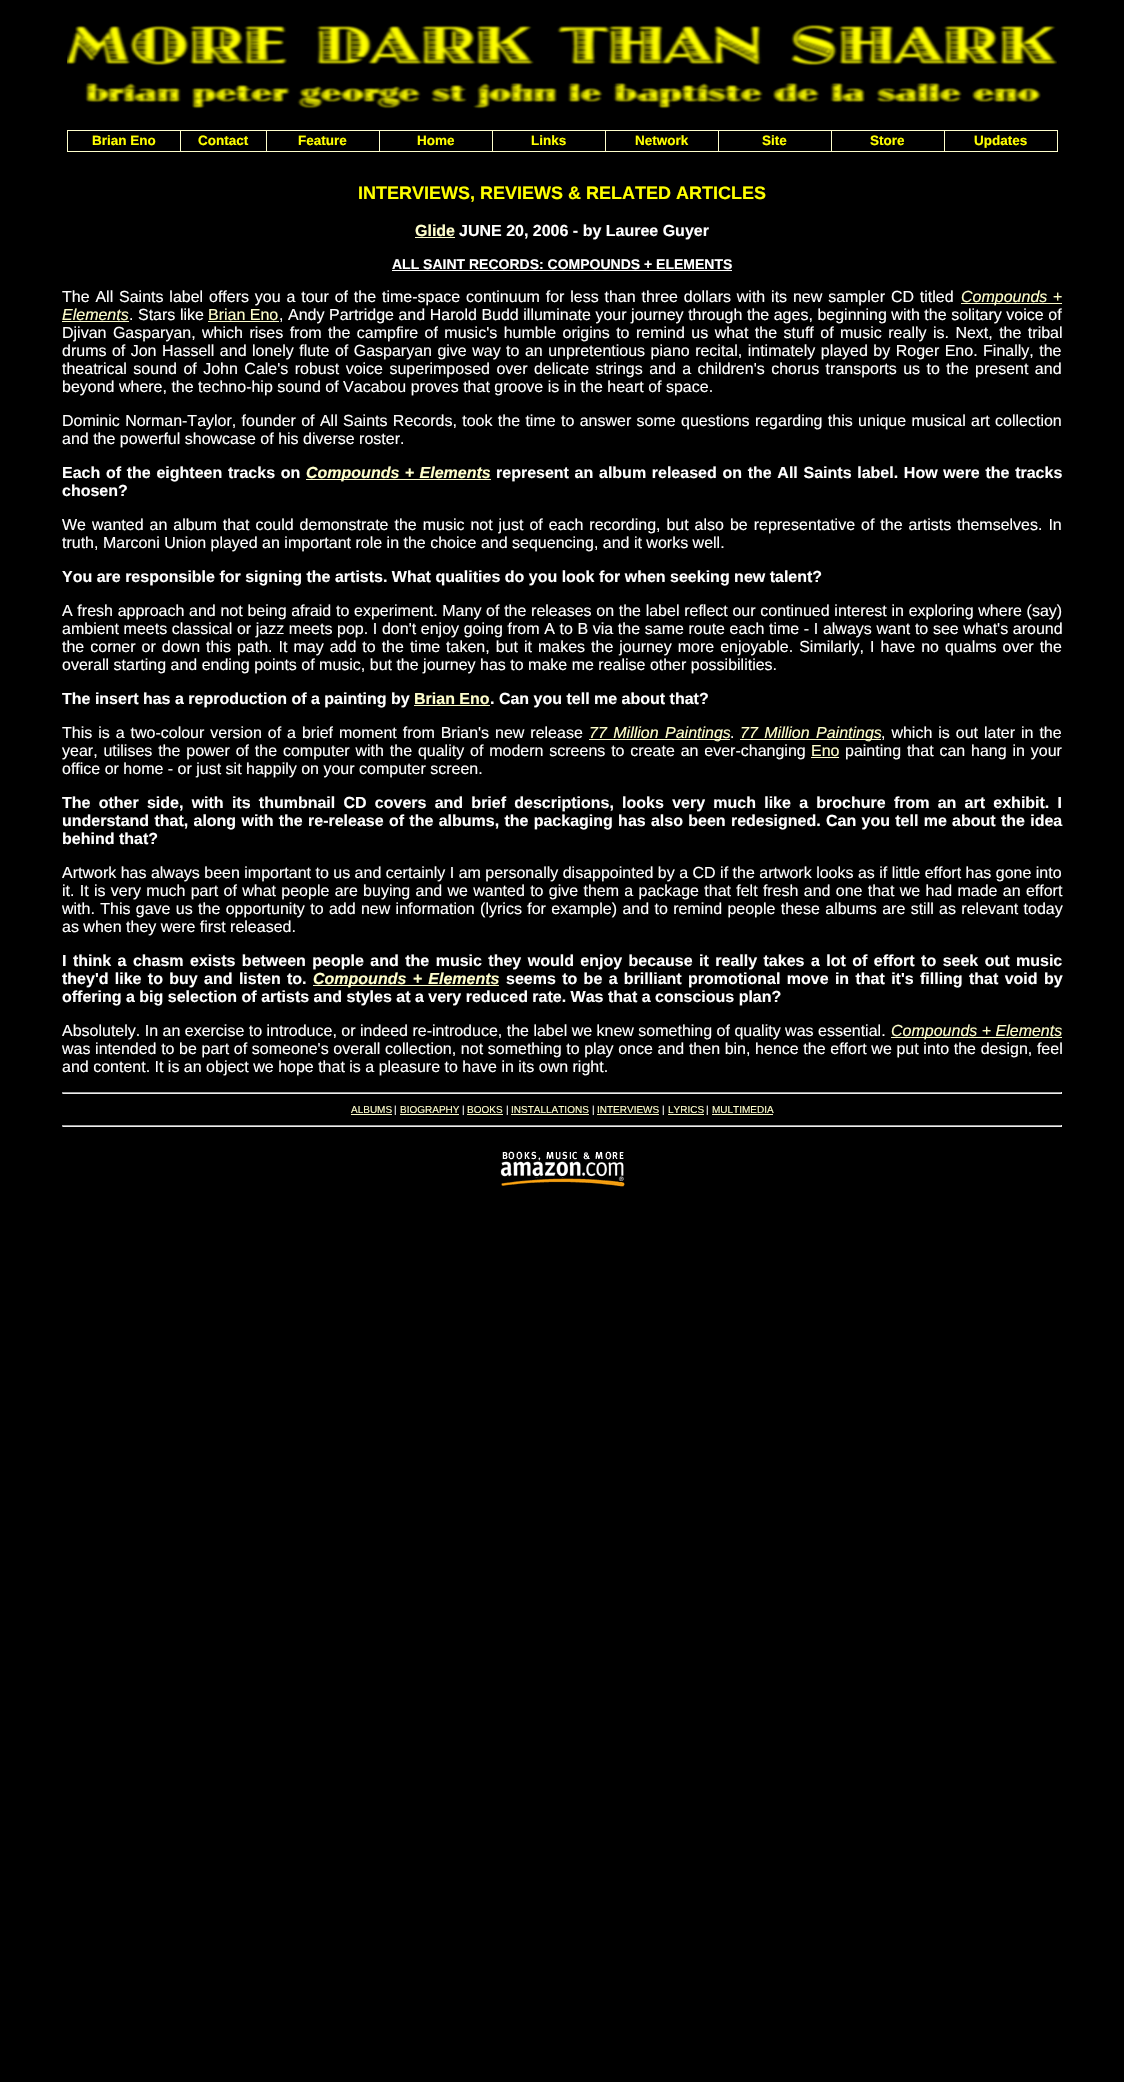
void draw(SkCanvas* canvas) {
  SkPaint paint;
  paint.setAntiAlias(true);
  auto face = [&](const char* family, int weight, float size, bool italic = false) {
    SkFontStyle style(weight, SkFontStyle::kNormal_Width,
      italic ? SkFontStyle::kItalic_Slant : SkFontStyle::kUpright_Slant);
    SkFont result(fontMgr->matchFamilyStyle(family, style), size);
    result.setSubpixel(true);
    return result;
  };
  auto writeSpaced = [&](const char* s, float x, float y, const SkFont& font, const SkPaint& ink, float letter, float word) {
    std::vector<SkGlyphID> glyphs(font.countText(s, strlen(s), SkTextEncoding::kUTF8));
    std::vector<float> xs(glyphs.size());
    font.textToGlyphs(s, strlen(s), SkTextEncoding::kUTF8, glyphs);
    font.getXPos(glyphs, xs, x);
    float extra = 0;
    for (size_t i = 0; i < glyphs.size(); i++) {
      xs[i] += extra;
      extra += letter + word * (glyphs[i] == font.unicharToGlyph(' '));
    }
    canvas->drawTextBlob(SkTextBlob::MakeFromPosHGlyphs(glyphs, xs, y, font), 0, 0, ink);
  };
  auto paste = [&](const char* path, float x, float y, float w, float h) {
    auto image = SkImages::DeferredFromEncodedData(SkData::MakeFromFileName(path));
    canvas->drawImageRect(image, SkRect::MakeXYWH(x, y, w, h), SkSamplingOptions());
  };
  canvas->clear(0xff000000);
  {
    const struct { float x, y, w, h; SkColor color; } items[] = {
      {67, 130, 991, 22, 0xffffffcc},
      {68, 131, 112, 20, 0xff000000},
      {181, 131, 85, 20, 0xff000000},
      {267, 131, 112, 20, 0xff000000},
      {380, 131, 112, 20, 0xff000000},
      {493, 131, 112, 20, 0xff000000},
      {606, 131, 112, 20, 0xff000000},
      {719, 131, 112, 20, 0xff000000},
      {832, 131, 112, 20, 0xff000000},
      {945, 131, 112, 20, 0xff000000},
    };
    for (auto [x, y, w, h, color] : items) {
      paint.setColor(color);
      canvas->drawRect(SkRect::MakeXYWH(x, y, w, h), paint);
    }
  }
  paste("img/1.png", 67, 24, 990, 85);
  {
    const struct { float x, y, w, h; SkColor color; } items[] = {
      {415, 237, 40, 1, 0xffffffcc},
      {392, 270, 340, 1, 0xffffffff},
      {961, 303, 101, 1, 0xffffffcc},
      {62, 321, 67, 1, 0xffffffcc},
      {208, 321, 71, 1, 0xffffffcc},
      {306, 479, 185, 1, 0xffffffcc},
      {414, 705, 76, 1, 0xffffffcc},
      {589, 739, 141, 1, 0xffffffcc},
      {740, 739, 141, 1, 0xffffffcc},
      {811, 757, 28, 1, 0xffffffcc},
      {313, 985, 186, 1, 0xffffffcc},
      {891, 1037, 171, 1, 0xffffffcc},
      {62, 1092, 1000, 1, 0xff9f9f9f},
      {1061, 1092, 1, 2, 0xffeeeeee},
      {62, 1093, 1000, 1, 0xffeeeeee},
      {62, 1092, 1, 2, 0xff9f9f9f},
      {351, 1114, 41, 1, 0xffffffcc},
      {400, 1114, 59, 1, 0xffffffcc},
      {467, 1114, 36, 1, 0xffffffcc},
      {511, 1114, 78, 1, 0xffffffcc},
      {597, 1114, 62, 1, 0xffffffcc},
      {668, 1114, 36, 1, 0xffffffcc},
      {712, 1114, 61, 1, 0xffffffcc},
      {62, 1125, 1000, 1, 0xff9f9f9f},
      {1061, 1125, 1, 2, 0xffeeeeee},
      {62, 1126, 1000, 1, 0xffeeeeee},
      {62, 1125, 1, 2, 0xff9f9f9f},
    };
    for (auto [x, y, w, h, color] : items) {
      paint.setColor(color);
      canvas->drawRect(SkRect::MakeXYWH(x, y, w, h), paint);
    }
  }
  paste("img/2.png", 500, 1151, 125, 36);
  auto f0 = face("Liberation Sans", 700, 13.5f);
  paint.setColor(0xffffff00);
  {
    const struct { const char* s; float x, y; } items[] = {
      {"Brian Eno", 92, 145},
      {"Contact", 198, 145},
      {"Feature", 298, 145},
      {"Home", 417, 145},
      {"Links", 531, 145},
      {"Network", 635, 145},
      {"Site", 762, 145},
      {"Store", 870, 145},
      {"Updates", 974, 145},
    };
    for (auto [s, x, y] : items) {
      canvas->drawString(s, x, y, f0, paint);
    }
  }
  auto f1 = face("Liberation Sans", 700, 18);
  canvas->drawString("INTERVIEWS, REVIEWS & RELATED ARTICLES", 358, 199, f1, paint);
  auto f2 = face("Liberation Sans", 700, 16);
  paint.setColor(0xffffffcc);
  canvas->drawString("Glide", 415, 236, f2, paint);
  paint.setColor(0xffffffff);
  canvas->drawString("JUNE 20, 2006 - by Lauree Guyer", 459, 236, f2, paint);
  auto f3 = face("Liberation Sans", 700, 14);
  canvas->drawString("ALL SAINT RECORDS: COMPOUNDS + ELEMENTS", 392, 269, f3, paint);
  auto f4 = face("Liberation Sans", 400, 16);
  writeSpaced("The All Saints label offers you a tour of the time-space continuum for less than three dollars with its new sampler CD titled", 62, 302, f4, paint, 0, 1.4f);
  auto f5 = face("Liberation Sans", 400, 16, true);
  paint.setColor(0xffffffcc);
  writeSpaced("Compounds +", 961, 302, f5, paint, 0, 1);
  canvas->drawString("Elements", 62, 320, f5, paint);
  paint.setColor(0xffffffff);
  writeSpaced(". Stars like", 129, 320, f4, paint, 0, 0.1f);
  paint.setColor(0xffffffcc);
  canvas->drawString("Brian Eno", 208, 320, f4, paint);
  paint.setColor(0xffffffff);
  writeSpaced(", Andy Partridge and Harold Budd illuminate your journey through the ages, beginning with the solitary voice of", 279, 320, f4, paint, 0, 0.1f);
  writeSpaced("Djivan Gasparyan, which rises from the campfire of music's humble origins to remind us what the stuff of music really is. Next, the tribal", 62, 338, f4, paint, 0, 2);
  writeSpaced("drums of Jon Hassell and lonely flute of Gasparyan give way to an unpretentious piano recital, intimately played by Roger Eno. Finally, the", 62, 356, f4, paint, 0, 1);
  writeSpaced("theatrical sound of John Cale's robust voice superimposed over delicate strings and a children's chorus transports us to the present and", 62, 374, f4, paint, 0, 2);
  canvas->drawString("beyond where, the techno-hip sound of Vacabou proves that groove is in the heart of space.", 62, 392, f4, paint);
  writeSpaced("Dominic Norman-Taylor, founder of All Saints Records, took the time to answer some questions regarding this unique musical art collection", 62, 426, f4, paint, 0, 0.9f);
  canvas->drawString("and the powerful showcase of his diverse roster.", 62, 444, f4, paint);
  writeSpaced("Each of the eighteen tracks on", 62, 478, f2, paint, 0, 1.25f);
  auto f6 = face("Liberation Sans", 700, 16, true);
  paint.setColor(0xffffffcc);
  writeSpaced("Compounds + Elements", 306, 478, f6, paint, 0, 1);
  paint.setColor(0xffffffff);
  writeSpaced("represent an album released on the All Saints label. How were the tracks", 496, 478, f2, paint, 0, 1.25f);
  canvas->drawString("chosen?", 62, 496, f2, paint);
  writeSpaced("We wanted an album that could demonstrate the music not just of each recording, but also be representative of the artists themselves. In", 62, 530, f4, paint, 0, 1.5f);
  canvas->drawString("truth, Marconi Union played an important role in the choice and sequencing, and it works well.", 62, 548, f4, paint);
  canvas->drawString("You are responsible for signing the artists. What qualities do you look for when seeking new talent?", 62, 582, f2, paint);
  writeSpaced("A fresh approach and not being afraid to experiment. Many of the releases on the label reflect our continued interest in exploring where (say)", 62, 616, f4, paint, 0, 0.25f);
  writeSpaced("ambient meets classical or jazz meets pop. I don't enjoy going from A to B via the same route each time - I always want to see what's around", 62, 634, f4, paint, 0, 0.2f);
  writeSpaced("the corner or down this path. It may add to the time taken, but it makes the journey more enjoyable. Similarly, I have no qualms over the", 62, 652, f4, paint, 0, 1.55f);
  canvas->drawString("overall starting and ending points of music, but the journey has to make me realise other possibilities.", 62, 670, f4, paint);
  canvas->drawString("The insert has a reproduction of a painting by", 62, 704, f2, paint);
  paint.setColor(0xffffffcc);
  canvas->drawString("Brian Eno", 414, 704, f2, paint);
  paint.setColor(0xffffffff);
  canvas->drawString(". Can you tell me about that?", 490, 704, f2, paint);
  writeSpaced("This is a two-colour version of a brief moment from Brian's new release", 62, 738, f4, paint, 0, 1.5f);
  paint.setColor(0xffffffcc);
  writeSpaced("77 Million Paintings", 589, 738, f5, paint, 0, 2);
  paint.setColor(0xffffffff);
  canvas->drawString(".", 730, 738, f4, paint);
  paint.setColor(0xffffffcc);
  writeSpaced("77 Million Paintings", 740, 738, f5, paint, 0, 2);
  paint.setColor(0xffffffff);
  writeSpaced(", which is out later in the", 881, 738, f4, paint, 0, 1.5f);
  writeSpaced("year, utilises the power of the computer with the quality of modern screens to create an ever-changing", 62, 756, f4, paint, 0, 1.4f);
  paint.setColor(0xffffffcc);
  canvas->drawString("Eno", 811, 756, f4, paint);
  paint.setColor(0xffffffff);
  writeSpaced("painting that can hang in your", 845, 756, f4, paint, 0, 1.4f);
  canvas->drawString("office or home - or just sit happily on your computer screen.", 62, 774, f4, paint);
  writeSpaced("The other side, with its thumbnail CD covers and brief descriptions, looks very much like a brochure from an art exhibit. I", 62, 808, f2, paint, 0, 3.8f);
  writeSpaced("understand that, along with the re-release of the albums, the packaging has also been redesigned. Can you tell me about the idea", 62, 826, f2, paint, 0, 0.85f);
  canvas->drawString("behind that?", 62, 844, f2, paint);
  canvas->drawString("Artwork has always been important to us and certainly I am personally disappointed by a CD if the artwork looks as if little effort has gone into", 62, 878, f4, paint);
  writeSpaced("it. It is very much part of what people are buying and we wanted to give them a package that felt fresh and one that we had made an effort", 62, 896, f4, paint, 0, 0.85f);
  writeSpaced("with. This gave us the opportunity to add new information (lyrics for example) and to remind people these albums are still as relevant today", 62, 914, f4, paint, 0, 0.9f);
  canvas->drawString("as when they were first released.", 62, 932, f4, paint);
  writeSpaced("I think a chasm exists between people and the music they would enjoy because it really takes a lot of effort to seek out music", 62, 966, f2, paint, 0, 2);
  writeSpaced("they'd like to buy and listen to.", 62, 984, f2, paint, 0, 1.9f);
  paint.setColor(0xffffffcc);
  writeSpaced("Compounds + Elements", 313, 984, f6, paint, 0, 1.9f);
  paint.setColor(0xffffffff);
  writeSpaced("seems to be a brilliant promotional move in that it's filling that void by", 506, 984, f2, paint, 0, 1.9f);
  canvas->drawString("offering a big selection of artists and styles at a very reduced rate. Was that a conscious plan?", 62, 1002, f2, paint);
  canvas->drawString("Absolutely. In an exercise to introduce, or indeed re-introduce, the label we knew something of quality was essential.", 62, 1036, f4, paint);
  paint.setColor(0xffffffcc);
  canvas->drawString("Compounds + Elements", 891, 1036, f5, paint);
  paint.setColor(0xffffffff);
  writeSpaced("was intended to be part of someone's overall collection, not something to play once and then bin, hence the effort we put into the design, feel", 62, 1054, f4, paint, 0, 0.2f);
  canvas->drawString("and content. It is an object we hope that is a pleasure to have in its own right.", 62, 1072, f4, paint);
  auto f7 = face("Liberation Sans", 400, 10);
  paint.setColor(0xffffffcc);
  canvas->drawString("ALBUMS", 351, 1113, f7, paint);
  paint.setColor(0xffffffff);
  canvas->drawString("|", 394, 1113, f7, paint);
  paint.setColor(0xffffffcc);
  canvas->drawString("BIOGRAPHY", 400, 1113, f7, paint);
  paint.setColor(0xffffffff);
  canvas->drawString("|", 462, 1113, f7, paint);
  paint.setColor(0xffffffcc);
  canvas->drawString("BOOKS", 467, 1113, f7, paint);
  paint.setColor(0xffffffff);
  canvas->drawString("|", 506, 1113, f7, paint);
  paint.setColor(0xffffffcc);
  canvas->drawString("INSTALLATIONS", 511, 1113, f7, paint);
  paint.setColor(0xffffffff);
  canvas->drawString("|", 592, 1113, f7, paint);
  paint.setColor(0xffffffcc);
  canvas->drawString("INTERVIEWS", 597, 1113, f7, paint);
  paint.setColor(0xffffffff);
  canvas->drawString("|", 662, 1113, f7, paint);
  paint.setColor(0xffffffcc);
  canvas->drawString("LYRICS", 668, 1113, f7, paint);
  paint.setColor(0xffffffff);
  canvas->drawString("|", 706, 1113, f7, paint);
  paint.setColor(0xffffffcc);
  canvas->drawString("MULTIMEDIA", 712, 1113, f7, paint);
}
